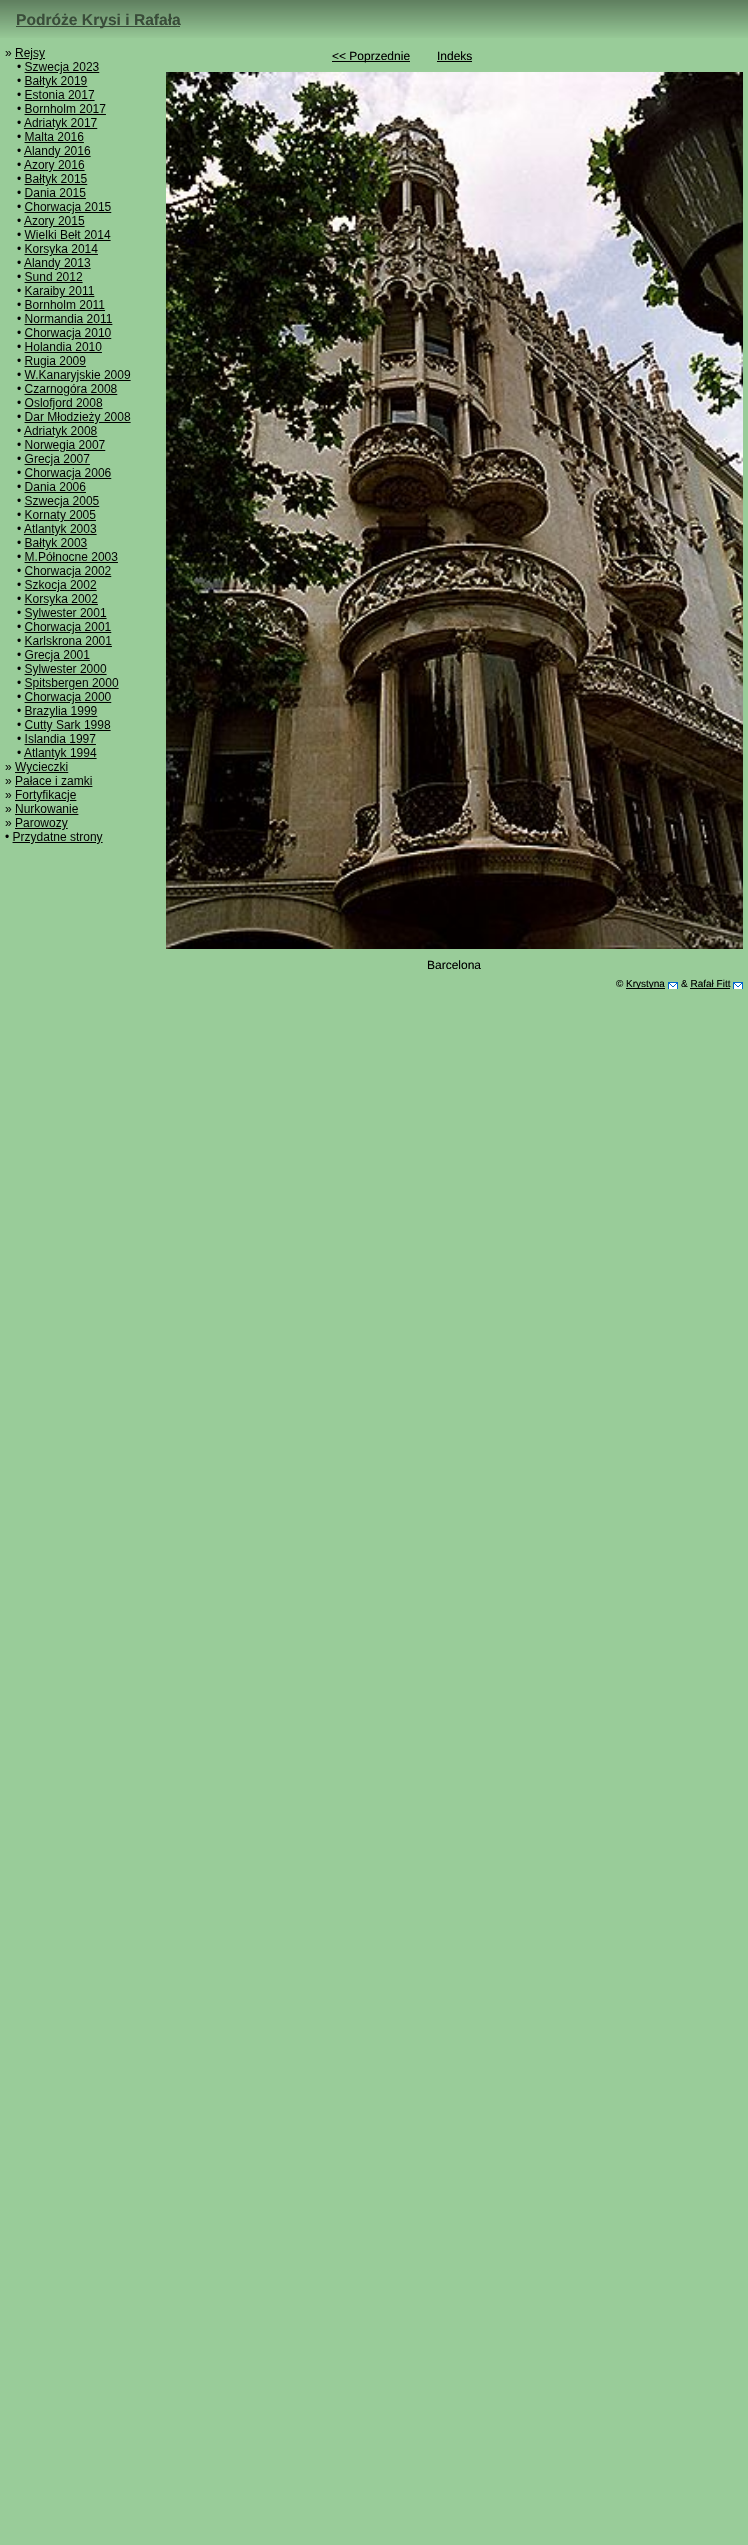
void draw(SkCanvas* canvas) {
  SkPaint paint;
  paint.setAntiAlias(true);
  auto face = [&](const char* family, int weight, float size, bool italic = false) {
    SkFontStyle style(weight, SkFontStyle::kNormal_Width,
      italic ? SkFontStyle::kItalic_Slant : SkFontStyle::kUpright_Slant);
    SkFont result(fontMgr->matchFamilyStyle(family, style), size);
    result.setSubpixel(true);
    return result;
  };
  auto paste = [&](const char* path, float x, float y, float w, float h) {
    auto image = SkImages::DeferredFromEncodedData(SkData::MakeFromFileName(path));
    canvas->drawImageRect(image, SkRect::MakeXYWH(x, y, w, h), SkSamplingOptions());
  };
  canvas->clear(0xff99cc99);
  paste("img/1.png", 0, 0, 748, 38);
  paint.setColor(0xff394c39);
  canvas->drawRect(SkRect::MakeXYWH(16, 26, 164, 1), paint);
  paste("img/2.png", 5, 48, 126, 796);
  paint.setColor(0xff000000);
  canvas->drawRect(SkRect::MakeXYWH(332, 61, 78, 1), paint);
  canvas->drawRect(SkRect::MakeXYWH(437, 61, 35, 1), paint);
  paste("img/3.png", 166, 72, 577, 877);
  canvas->drawRect(SkRect::MakeXYWH(626, 988, 39, 1), paint);
  paste("img/4.png", 668, 982, 10, 7);
  paste("img/4.png", 733, 982, 10, 7);
  canvas->drawRect(SkRect::MakeXYWH(690, 988, 40, 1), paint);
  auto f0 = face("Liberation Sans", 700, 15.6f);
  paint.setColor(0xff394c39);
  canvas->drawString("Podróże Krysi i Rafała", 16, 25, f0, paint);
  auto f1 = face("Liberation Sans", 400, 12);
  paint.setColor(0xff000000);
  {
    const struct { const char* s; float x, y; } items[] = {
      {"<< Poprzednie", 332, 60},
      {"Indeks", 437, 60},
      {"Barcelona", 427, 969},
    };
    for (auto [s, x, y] : items) {
      canvas->drawString(s, x, y, f1, paint);
    }
  }
  auto f2 = face("Liberation Sans", 400, 10);
  {
    const struct { const char* s; float x, y; } items[] = {
      {"©", 616, 987},
      {"Krystyna", 626, 987},
      {"& Rafał Fitt", 681, 987},
    };
    for (auto [s, x, y] : items) {
      canvas->drawString(s, x, y, f2, paint);
    }
  }
}
